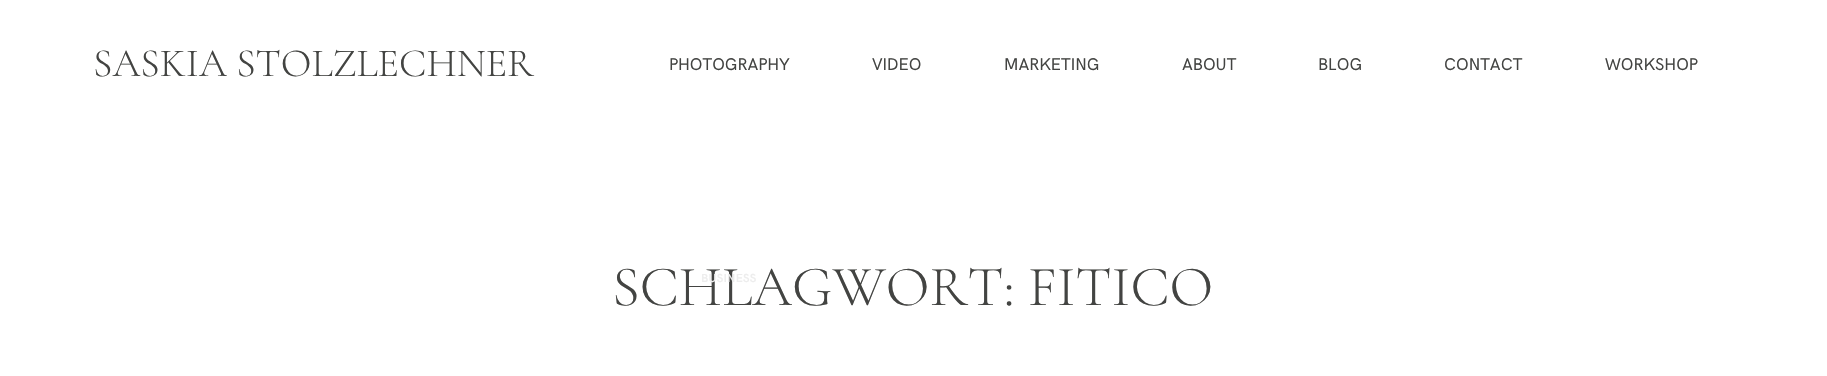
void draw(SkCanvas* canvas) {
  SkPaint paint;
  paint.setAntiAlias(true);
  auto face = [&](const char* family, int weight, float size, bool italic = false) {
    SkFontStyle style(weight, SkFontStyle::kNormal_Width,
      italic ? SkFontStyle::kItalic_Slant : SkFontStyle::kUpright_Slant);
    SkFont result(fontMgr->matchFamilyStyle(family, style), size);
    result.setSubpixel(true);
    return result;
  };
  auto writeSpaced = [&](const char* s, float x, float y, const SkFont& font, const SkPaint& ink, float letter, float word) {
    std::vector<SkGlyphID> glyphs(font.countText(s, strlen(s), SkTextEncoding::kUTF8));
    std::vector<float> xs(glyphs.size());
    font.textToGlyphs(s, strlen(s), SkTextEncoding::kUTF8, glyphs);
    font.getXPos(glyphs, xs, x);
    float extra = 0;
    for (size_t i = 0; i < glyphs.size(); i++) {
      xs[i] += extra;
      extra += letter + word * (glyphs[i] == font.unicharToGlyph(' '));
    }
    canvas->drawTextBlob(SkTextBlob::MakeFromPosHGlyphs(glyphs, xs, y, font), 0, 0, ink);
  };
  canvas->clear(0xffffffff);
  auto f0 = face("Cormorant Garamond", 300, 40);
  paint.setColor(0xff434442);
  canvas->drawString("SASKIA STOLZLECHNER", 93, 76, f0, paint);
  auto f1 = face("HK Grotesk", 400, 17);
  {
    const struct { const char* s; float x, y; } items[] = {
      {"PHOTOGRAPHY", 669, 70},
      {"VIDEO", 872, 70},
      {"MARKETING", 1004, 70},
      {"ABOUT", 1182, 70},
      {"BLOG", 1318, 70},
      {"CONTACT", 1444, 70},
      {"WORKSHOP", 1605, 70},
    };
    for (auto [s, x, y] : items) {
      canvas->drawString(s, x, y, f1, paint);
    }
  }
  auto f2 = face("Cormorant Garamond", 300, 57);
  canvas->drawString("SCHLAGWORT: FITICO", 612, 305, f2, paint);
  auto f3 = face("HK Grotesk", 600, 11.5f);
  paint.setColor(0xffededed);
  writeSpaced("BUSINESS", 701, 282, f3, paint, 0.25f, 0);
}
